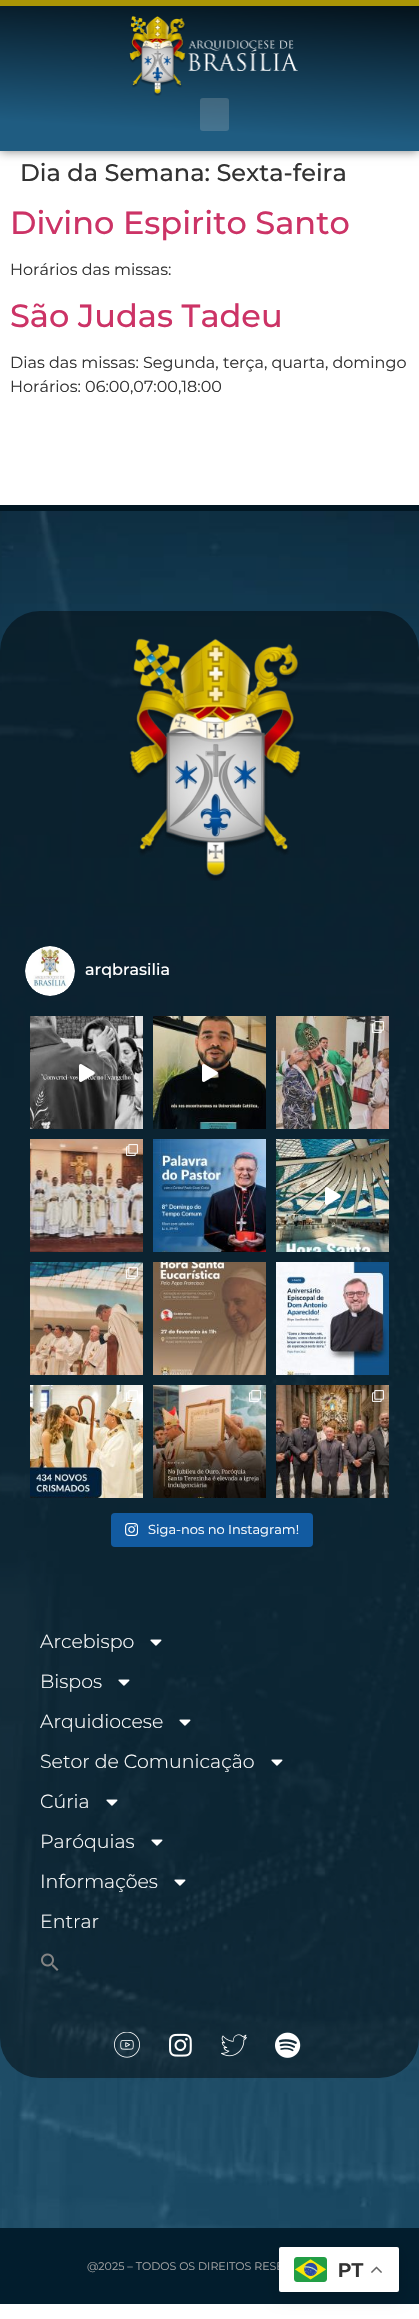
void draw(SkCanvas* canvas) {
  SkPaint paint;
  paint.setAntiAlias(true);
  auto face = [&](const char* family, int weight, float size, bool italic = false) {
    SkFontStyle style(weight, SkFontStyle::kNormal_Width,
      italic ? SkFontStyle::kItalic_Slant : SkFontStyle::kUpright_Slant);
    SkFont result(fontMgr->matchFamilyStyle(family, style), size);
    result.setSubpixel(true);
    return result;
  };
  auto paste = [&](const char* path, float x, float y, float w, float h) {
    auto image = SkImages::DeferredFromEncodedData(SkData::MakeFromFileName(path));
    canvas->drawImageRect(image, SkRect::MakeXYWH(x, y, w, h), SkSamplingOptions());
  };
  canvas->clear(0xffffffff);
  paint.setColor(0x80000000);
  paint.setMaskFilter(SkMaskFilter::MakeBlur(kNormal_SkBlurStyle, 5));
  canvas->drawRect(SkRect::MakeXYWH(0, 0, 419, 151), paint);
  paint.setMaskFilter(nullptr);
  {
    const SkColor colors[] = {0xff04121b, 0xff1f5c81};
    const float stops[] = {0, 0.82f};
    const SkPoint ends[] = {{214, -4.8f}, {205, 162}};
    paint.setShader(SkGradientShader::MakeLinear(ends, colors, stops, 2, SkTileMode::kClamp));
    paint.setAlpha(255);
  }
  canvas->drawRect(SkRect::MakeXYWH(0, 6, 419, 145), paint);
  paint.setShader(nullptr);
  paint.setColor(0xffaa9506);
  canvas->drawRect(SkRect::MakeXYWH(0, 0, 419, 6), paint);
  paste("img/1.png", 129, 16, 169, 80);
  paint.setColor(0x38cfcfcf);
  canvas->drawRoundRect(SkRect::MakeXYWH(200, 98, 29, 33), 3, 3, paint);
  paste("img/2.png", 0, 511, 419, 1717);
  paint.setColor(0xff011622);
  canvas->drawRect(SkRect::MakeXYWH(0, 505, 419, 6), paint);
  paint.setColor(0x73000000);
  canvas->drawRoundRect(SkRect::MakeXYWH(0, 611, 419, 1467), 40, 40, paint);
  paste("img/3.png", 129, 638, 172, 243);
  paste("img/4.png", 25, 946, 50, 50);
  paste("img/5.png", 30, 1016, 113, 113);
  paste("img/6.png", 79, 1064, 16, 18);
  paste("img/7.png", 153, 1016, 113, 113);
  paste("img/8.png", 202, 1064, 16, 18);
  paste("img/9.png", 276, 1016, 113, 113);
  paste("img/10.png", 372, 1021, 12, 12);
  paste("img/11.png", 30, 1139, 113, 113);
  paste("img/12.png", 126, 1144, 12, 12);
  paste("img/13.png", 153, 1139, 113, 113);
  paste("img/14.png", 276, 1139, 113, 113);
  paste("img/15.png", 325, 1187, 16, 18);
  paste("img/16.png", 30, 1262, 113, 113);
  paste("img/17.png", 126, 1267, 12, 12);
  paste("img/18.png", 153, 1262, 113, 113);
  paste("img/19.png", 276, 1262, 113, 113);
  paste("img/20.png", 30, 1385, 113, 113);
  paste("img/21.png", 126, 1390, 12, 12);
  paste("img/22.png", 153, 1385, 113, 113);
  paste("img/23.png", 249, 1390, 12, 12);
  paste("img/24.png", 276, 1385, 113, 113);
  paste("img/25.png", 372, 1390, 12, 12);
  paint.setColor(0xff125ba1);
  canvas->drawRoundRect(SkRect::MakeXYWH(111, 1513, 202, 34), 4, 4, paint);
  paste("img/26.png", 125, 1523, 13, 13);
  paste("img/27.png", 150, 1639, 12, 7);
  paste("img/28.png", 118, 1679, 12, 7);
  paste("img/29.png", 179, 1719, 12, 7);
  paste("img/30.png", 271, 1759, 12, 7);
  paste("img/31.png", 106, 1799, 12, 7);
  paste("img/32.png", 151, 1839, 12, 7);
  paste("img/33.png", 174, 1879, 12, 7);
  paste("img/34.png", 41, 1953, 18, 18);
  paste("img/35.png", 114, 2032, 26, 26);
  paste("img/36.png", 169, 2033, 23, 24);
  paste("img/37.png", 221, 2034, 26, 23);
  paste("img/38.png", 275, 2032, 26, 26);
  paint.setColor(0xff021d2d);
  canvas->drawRect(SkRect::MakeXYWH(0, 2228, 419, 76), paint);
  paint.setColor(0x26000000);
  paint.setMaskFilter(SkMaskFilter::MakeBlur(kNormal_SkBlurStyle, 7.5f));
  canvas->drawRoundRect(SkRect::MakeXYWH(279, 2252, 120, 45), 2, 2, paint);
  paint.setMaskFilter(nullptr);
  auto f0 = face("Montserrat", 500, 24);
  paint.setColor(0xff333333);
  canvas->drawString("Dia da Semana: Sexta-feira", 20, 181, f0, paint);
  auto f1 = face("Montserrat", 500, 32);
  paint.setColor(0xffcc3366);
  canvas->drawString("Divino Espirito Santo", 10, 234, f1, paint);
  auto f2 = face("Montserrat", 400, 16);
  paint.setColor(0xff333333);
  canvas->drawString("Horários das missas:", 10, 275, f2, paint);
  paint.setColor(0xffcc3366);
  canvas->drawString("São Judas Tadeu", 10, 327, f1, paint);
  paint.setColor(0xff333333);
  canvas->drawString("Dias das missas: Segunda, terça, quarta, domingo", 10, 368, f2, paint);
  canvas->drawString("Horários: 06:00,07:00,18:00", 10, 392, f2, paint);
  auto f3 = face("Montserrat", 500, 16);
  paint.setColor(0xffffffff);
  canvas->drawString("arqbrasilia", 85, 975, f3, paint);
  auto f4 = face("Montserrat", 400, 13);
  canvas->drawString("Siga-nos no Instagram!", 148, 1534, f4, paint);
  auto f5 = face("Montserrat", 300, 19);
  {
    const struct { const char* s; float x, y; } items[] = {
      {"Arcebispo", 40, 1648},
      {"Bispos", 40, 1688},
      {"Arquidiocese", 40, 1728},
      {"Setor de Comunicação", 40, 1768},
      {"Cúria", 40, 1808},
      {"Paróquias", 40, 1848},
      {"Informações", 40, 1888},
      {"Entrar", 40, 1928},
    };
    for (auto [s, x, y] : items) {
      canvas->drawString(s, x, y, f5, paint);
    }
  }
  auto f6 = face("Montserrat", 400, 11);
  paint.setColor(0xffa5a5a5);
  canvas->drawString("@2025 – TODOS OS DIREITOS RESE", 87, 2270, f6, paint);
  paint.setColor(0xffffffff);
  canvas->drawRoundRect(SkRect::MakeXYWH(279, 2247, 120, 45), 2, 2, paint);
  paste("img/39.png", 294, 2257, 33, 25);
  auto f7 = face("Liberation Sans", 700, 20);
  paint.setColor(0xff333333);
  canvas->drawString("PT", 338, 2277, f7, paint);
  paste("img/40.png", 371, 2266, 11, 7);
}
